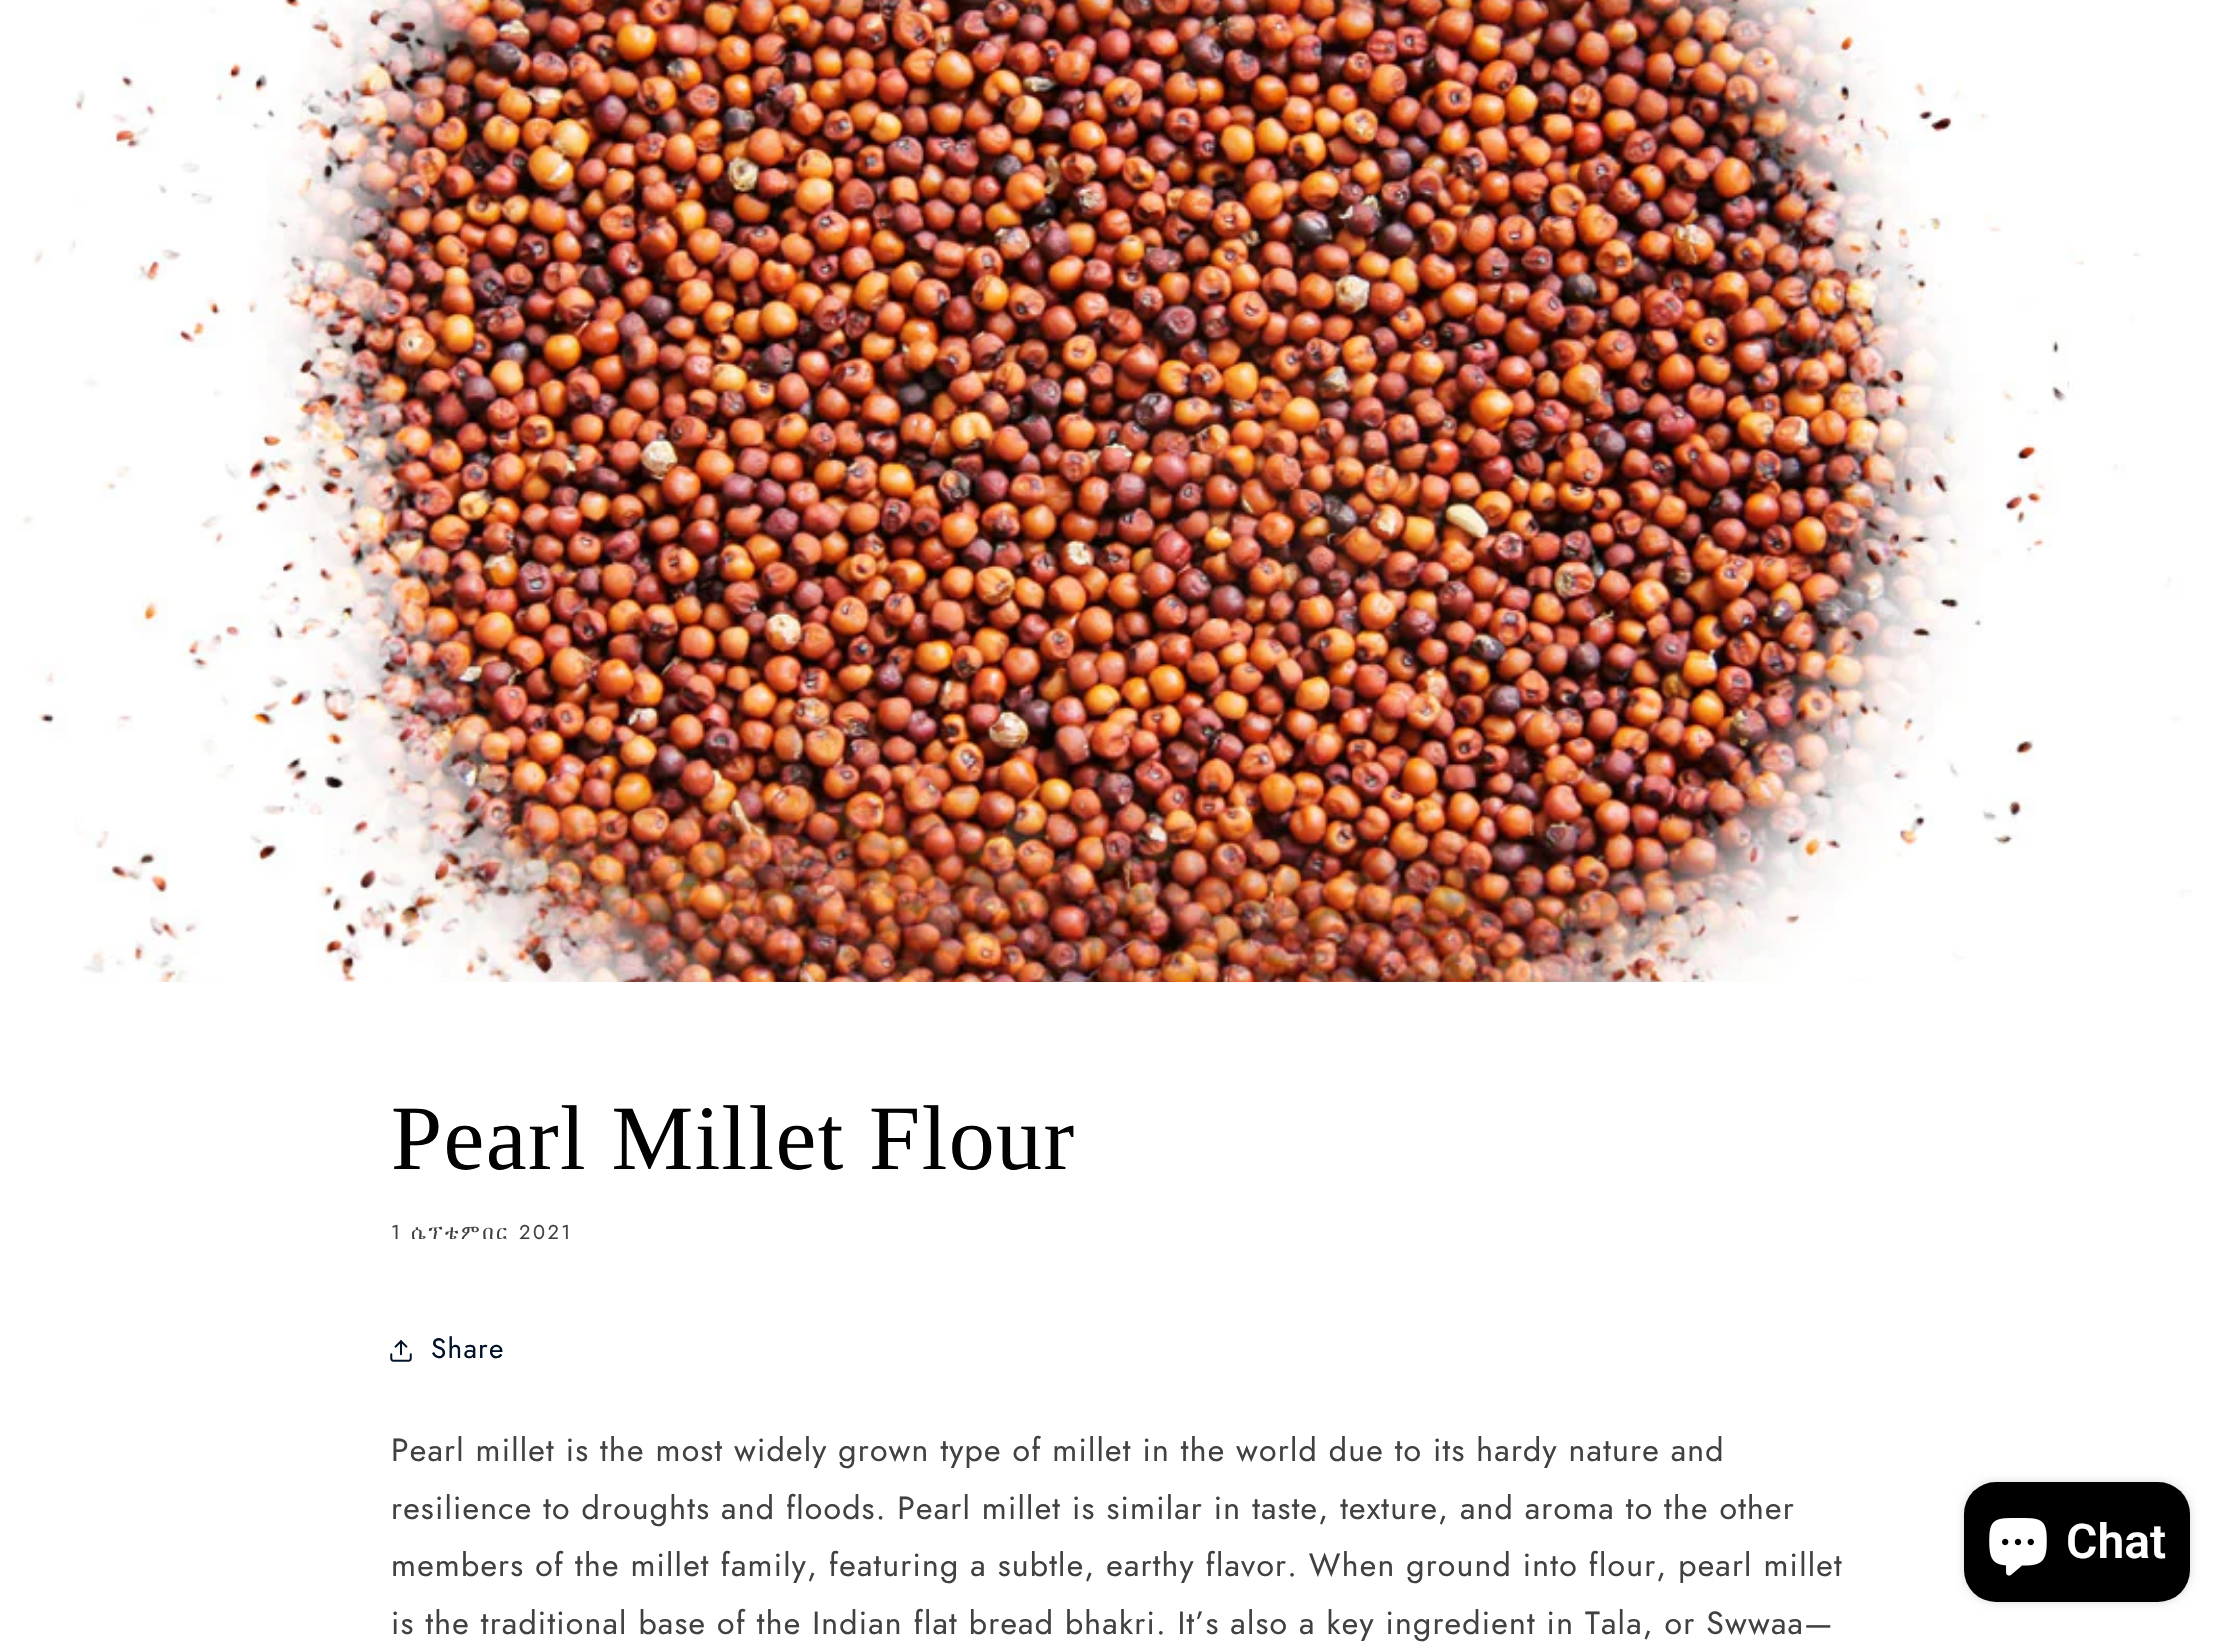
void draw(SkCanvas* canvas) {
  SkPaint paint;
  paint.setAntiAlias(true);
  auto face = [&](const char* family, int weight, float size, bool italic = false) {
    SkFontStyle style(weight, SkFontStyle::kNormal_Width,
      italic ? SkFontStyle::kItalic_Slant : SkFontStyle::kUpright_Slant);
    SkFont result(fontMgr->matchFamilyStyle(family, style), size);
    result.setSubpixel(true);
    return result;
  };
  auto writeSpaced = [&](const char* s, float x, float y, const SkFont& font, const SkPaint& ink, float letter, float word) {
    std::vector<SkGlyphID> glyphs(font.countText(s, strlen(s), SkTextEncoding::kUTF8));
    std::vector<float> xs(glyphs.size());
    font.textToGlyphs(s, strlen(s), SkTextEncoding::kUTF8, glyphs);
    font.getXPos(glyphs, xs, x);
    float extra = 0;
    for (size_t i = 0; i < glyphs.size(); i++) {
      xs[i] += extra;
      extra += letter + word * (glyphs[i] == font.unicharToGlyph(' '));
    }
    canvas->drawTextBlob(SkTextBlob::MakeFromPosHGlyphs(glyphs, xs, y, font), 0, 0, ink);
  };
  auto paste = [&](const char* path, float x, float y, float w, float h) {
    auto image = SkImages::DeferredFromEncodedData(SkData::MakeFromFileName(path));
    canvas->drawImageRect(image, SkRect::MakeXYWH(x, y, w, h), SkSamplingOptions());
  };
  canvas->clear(0xffffffff);
  paste("img/1.png", 0, 0, 2234, 982);
  paste("img/2.png", 390, 1340, 22, 22);
  paint.setColor(0x26000000);
  paint.setMaskFilter(SkMaskFilter::MakeBlur(kNormal_SkBlurStyle, 5));
  canvas->drawRoundRect(SkRect::MakeXYWH(1964, 1482, 226, 120), 32, 32, paint);
  paint.setMaskFilter(nullptr);
  paint.setColor(0xff000000);
  canvas->drawRoundRect(SkRect::MakeXYWH(1964, 1482, 226, 120), 32, 32, paint);
  paste("img/3.png", 1989, 1518, 58, 58);
  auto f0 = face("Liberation Serif", 400, 92);
  paint.setColor(0xff030202);
  writeSpaced("Pearl Millet Flour", 391, 1169, f0, paint, 1.4f, 0);
  auto f1 = face("Jost", 400, 20);
  paint.setColor(0xff424141);
  writeSpaced("1", 391, 1239, f1, paint, 2.5f, 0);
  auto f2 = face("FreeSerif", 400, 20);
  writeSpaced("ሴፕቴምበር", 411, 1239, f2, paint, 2.5f, 0);
  writeSpaced("2021", 519, 1239, f1, paint, 2.5f, 0);
  auto f3 = face("Jost", 400, 28);
  paint.setColor(0xff001128);
  writeSpaced("Share", 431, 1358, f3, paint, 1.2f, 0);
  auto f4 = face("Jost", 400, 32);
  paint.setColor(0xff424141);
  {
    const struct { const char* s; float x, y; } items[] = {
      {"Pearl millet is the most widely grown type of millet in the world due to its hardy nature and", 391, 1461},
      {"resilience to droughts and floods. Pearl millet is similar in taste, texture, and aroma to the other", 391, 1519},
      {"members of the millet family, featuring a subtle, earthy flavor. When ground into flour, pearl millet", 391, 1576},
      {"is the traditional base of the Indian flat bread bhakri. It’s also a key ingredient in Tala, or Swwaa—", 391, 1634},
    };
    for (auto [s, x, y] : items) {
      writeSpaced(s, x, y, f4, paint, 1.2f, 0);
    }
  }
  auto f5 = face("Roboto", 600, 48);
  paint.setColor(0xffffffff);
  canvas->drawString("Chat", 2066, 1558, f5, paint);
}
